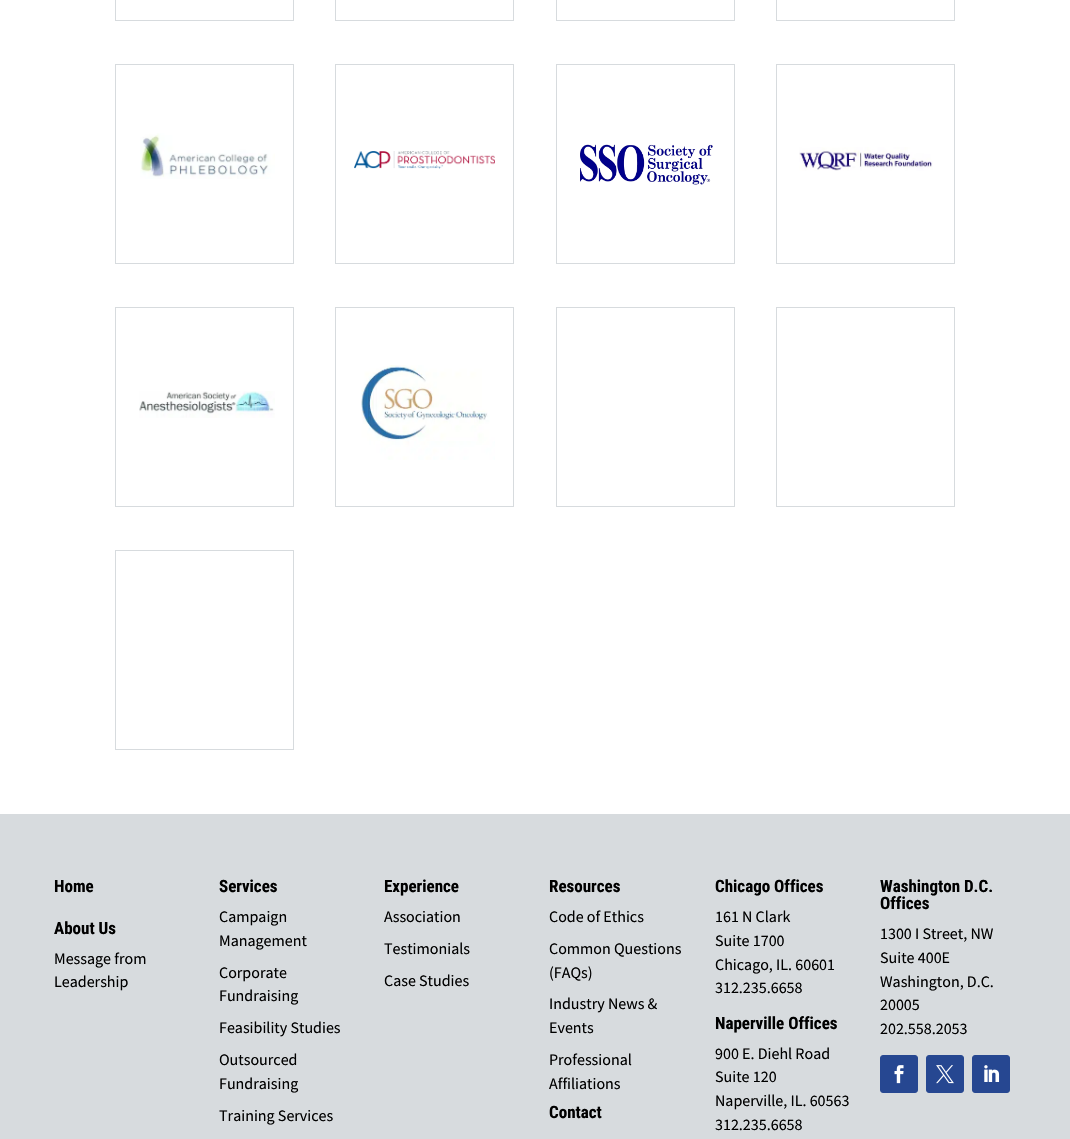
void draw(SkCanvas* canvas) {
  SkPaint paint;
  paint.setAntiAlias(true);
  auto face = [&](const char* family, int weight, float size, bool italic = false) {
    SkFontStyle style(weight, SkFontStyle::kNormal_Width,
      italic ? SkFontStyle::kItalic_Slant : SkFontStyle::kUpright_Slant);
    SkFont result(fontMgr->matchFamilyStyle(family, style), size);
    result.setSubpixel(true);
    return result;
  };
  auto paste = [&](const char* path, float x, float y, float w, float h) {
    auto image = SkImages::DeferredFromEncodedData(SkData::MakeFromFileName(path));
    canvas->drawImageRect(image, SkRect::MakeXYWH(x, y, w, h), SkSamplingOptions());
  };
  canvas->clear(0xffffffff);
  paint.setStroke(true);
  paint.setStrokeWidth(1);
  paint.setColor(0xffd7dbde);
  canvas->drawRect(SkRect::MakeXYWH(115.5f, -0.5f, 178, 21), paint);
  canvas->drawRect(SkRect::MakeXYWH(335.5f, -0.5f, 178, 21), paint);
  canvas->drawRect(SkRect::MakeXYWH(556.5f, -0.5f, 178, 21), paint);
  canvas->drawRect(SkRect::MakeXYWH(776.5f, -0.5f, 178, 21), paint);
  canvas->drawRect(SkRect::MakeXYWH(115.5f, 64.5f, 178, 199), paint);
  paste("img/1.png", 140, 133, 135, 46);
  canvas->drawRect(SkRect::MakeXYWH(335.5f, 64.5f, 178, 199), paint);
  paste("img/2.png", 354, 151, 141, 18);
  canvas->drawRect(SkRect::MakeXYWH(556.5f, 64.5f, 178, 199), paint);
  paste("img/3.png", 580, 144, 133, 41);
  canvas->drawRect(SkRect::MakeXYWH(776.5f, 64.5f, 178, 199), paint);
  paste("img/4.png", 799, 147, 134, 24);
  canvas->drawRect(SkRect::MakeXYWH(115.5f, 307.5f, 178, 199), paint);
  paste("img/5.png", 139, 391, 136, 27);
  canvas->drawRect(SkRect::MakeXYWH(335.5f, 307.5f, 178, 199), paint);
  paste("img/6.png", 361, 365, 134, 95);
  canvas->drawRect(SkRect::MakeXYWH(556.5f, 307.5f, 178, 199), paint);
  canvas->drawRect(SkRect::MakeXYWH(776.5f, 307.5f, 178, 199), paint);
  canvas->drawRect(SkRect::MakeXYWH(115.5f, 550.5f, 178, 199), paint);
  paint.setStroke(false);
  canvas->drawRect(SkRect::MakeXYWH(0, 814, 1070, 325), paint);
  paint.setColor(0xff264791);
  canvas->drawRoundRect(SkRect::MakeXYWH(880.5f, 1055.5f, 37, 37), 2.5f, 2.5f, paint);
  paint.setStroke(true);
  canvas->drawRoundRect(SkRect::MakeXYWH(880.5f, 1055.5f, 37, 37), 2.5f, 2.5f, paint);
  paste("img/7.png", 894, 1065, 10, 19);
  paint.setStroke(false);
  canvas->drawRoundRect(SkRect::MakeXYWH(926.5f, 1055.5f, 37, 37), 2.5f, 2.5f, paint);
  paint.setStroke(true);
  canvas->drawRoundRect(SkRect::MakeXYWH(926.5f, 1055.5f, 37, 37), 2.5f, 2.5f, paint);
  paste("img/8.png", 936, 1065, 18, 19);
  paint.setStroke(false);
  canvas->drawRoundRect(SkRect::MakeXYWH(972.5f, 1055.5f, 37, 37), 2.5f, 2.5f, paint);
  paint.setStroke(true);
  canvas->drawRoundRect(SkRect::MakeXYWH(972.5f, 1055.5f, 37, 37), 2.5f, 2.5f, paint);
  paste("img/9.png", 984, 1065, 16, 17);
  auto f0 = face("Roboto Condensed", 700, 17);
  paint.setStroke(false);
  paint.setColor(0xff000000);
  canvas->drawString("Home", 54, 892, f0, paint);
  canvas->drawString("About Us", 54, 934, f0, paint);
  auto f1 = face("Source Sans Pro", 400, 16);
  canvas->drawString("Message from", 54, 964, f1, paint);
  canvas->drawString("Leadership", 54, 987, f1, paint);
  canvas->drawString("Services", 219, 892, f0, paint);
  {
    const struct { const char* s; float x, y; } items[] = {
      {"Campaign", 219, 922},
      {"Management", 219, 946},
      {"Corporate", 219, 978},
      {"Fundraising", 219, 1001},
      {"Feasibility Studies", 219, 1033},
      {"Outsourced", 219, 1065},
      {"Fundraising", 219, 1089},
      {"Training Services", 219, 1121},
    };
    for (auto [s, x, y] : items) {
      canvas->drawString(s, x, y, f1, paint);
    }
  }
  canvas->drawString("Experience", 384, 892, f0, paint);
  {
    const struct { const char* s; float x, y; } items[] = {
      {"Association", 384, 922},
      {"Testimonials", 384, 954},
      {"Case Studies", 384, 986},
    };
    for (auto [s, x, y] : items) {
      canvas->drawString(s, x, y, f1, paint);
    }
  }
  canvas->drawString("Resources", 549, 892, f0, paint);
  {
    const struct { const char* s; float x, y; } items[] = {
      {"Code of Ethics", 549, 922},
      {"Common Questions", 549, 954},
      {"(FAQs)", 549, 978},
      {"Industry News &", 549, 1009},
      {"Events", 549, 1033},
      {"Professional", 549, 1065},
      {"Affiliations", 549, 1089},
    };
    for (auto [s, x, y] : items) {
      canvas->drawString(s, x, y, f1, paint);
    }
  }
  canvas->drawString("Contact", 549, 1118, f0, paint);
  canvas->drawString("Chicago Offices", 715, 892, f0, paint);
  {
    const struct { const char* s; float x, y; } items[] = {
      {"161 N Clark", 715, 922},
      {"Suite 1700", 715, 946},
      {"Chicago, IL. 60601", 715, 970},
      {"312.235.6658", 715, 993},
    };
    for (auto [s, x, y] : items) {
      canvas->drawString(s, x, y, f1, paint);
    }
  }
  canvas->drawString("Naperville Offices", 715, 1029, f0, paint);
  {
    const struct { const char* s; float x, y; } items[] = {
      {"900 E. Diehl Road", 715, 1059},
      {"Suite 120", 715, 1082},
      {"Naperville, IL. 60563", 715, 1106},
      {"312.235.6658", 715, 1130},
    };
    for (auto [s, x, y] : items) {
      canvas->drawString(s, x, y, f1, paint);
    }
  }
  canvas->drawString("Washington D.C.", 880, 892, f0, paint);
  canvas->drawString("Offices", 880, 909, f0, paint);
  {
    const struct { const char* s; float x, y; } items[] = {
      {"1300 I Street, NW", 880, 939},
      {"Suite 400E", 880, 963},
      {"Washington, D.C.", 880, 987},
      {"20005", 880, 1010},
      {"202.558.2053", 880, 1034},
    };
    for (auto [s, x, y] : items) {
      canvas->drawString(s, x, y, f1, paint);
    }
  }
}
